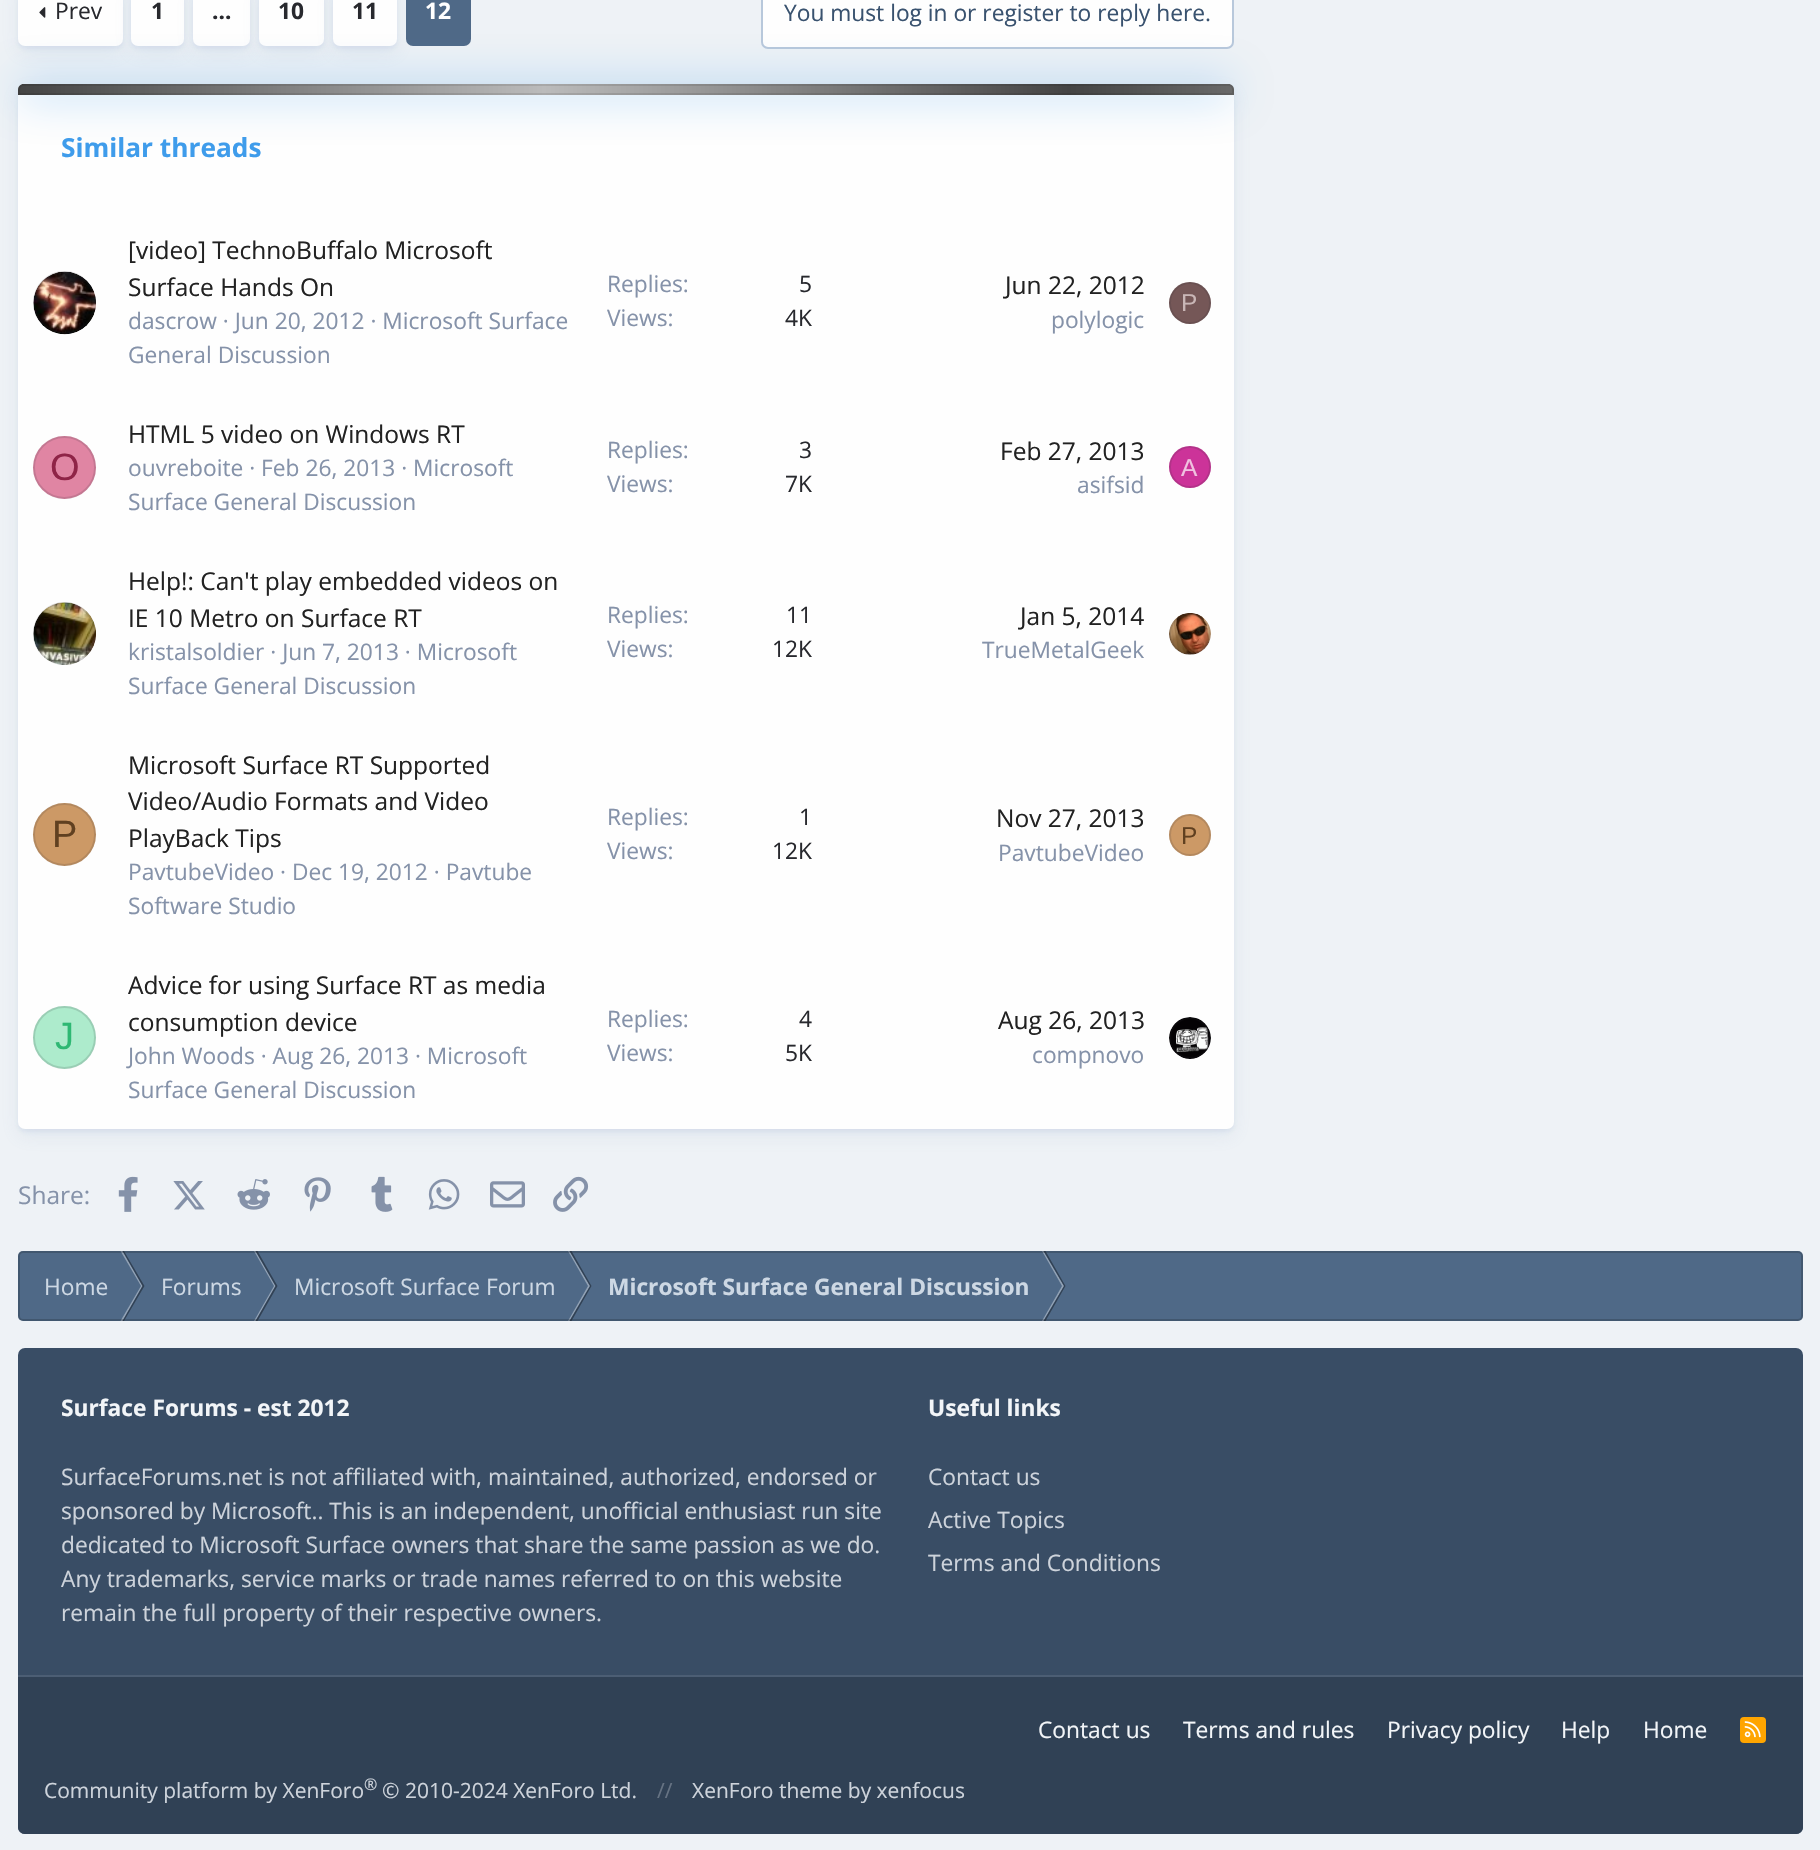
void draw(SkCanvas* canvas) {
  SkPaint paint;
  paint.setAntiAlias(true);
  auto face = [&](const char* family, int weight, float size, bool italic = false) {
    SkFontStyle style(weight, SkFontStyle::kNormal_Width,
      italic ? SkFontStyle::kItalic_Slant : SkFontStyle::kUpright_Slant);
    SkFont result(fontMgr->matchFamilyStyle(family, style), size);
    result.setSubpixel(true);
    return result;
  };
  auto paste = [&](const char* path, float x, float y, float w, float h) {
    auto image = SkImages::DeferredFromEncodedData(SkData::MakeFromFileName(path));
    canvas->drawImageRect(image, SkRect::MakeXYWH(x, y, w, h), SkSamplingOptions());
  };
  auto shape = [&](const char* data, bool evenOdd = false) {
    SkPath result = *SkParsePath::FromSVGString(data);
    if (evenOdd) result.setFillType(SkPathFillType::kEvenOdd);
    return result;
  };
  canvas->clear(0xffeef2f6);
  paint.setColor(0x1f7897ba);
  paint.setMaskFilter(SkMaskFilter::MakeBlur(kNormal_SkBlurStyle, 9));
  canvas->drawRoundRect(SkRect::MakeXYWH(18, -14, 105, 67), 7, 7, paint);
  paint.setMaskFilter(nullptr);
  paint.setMaskFilter(SkMaskFilter::MakeBlur(kNormal_SkBlurStyle, 2));
  canvas->drawRoundRect(SkRect::MakeXYWH(18, -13, 105, 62), 7, 7, paint);
  paint.setMaskFilter(nullptr);
  paint.setColor(0xfffefefe);
  canvas->drawRoundRect(SkRect::MakeXYWH(18, -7, 105, 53), 7, 7, paint);
  paste("img/1.png", 39, 7, 7, 11);
  paint.setColor(0x1f7897ba);
  paint.setMaskFilter(SkMaskFilter::MakeBlur(kNormal_SkBlurStyle, 9));
  canvas->drawRoundRect(SkRect::MakeXYWH(131, -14, 53, 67), 7, 7, paint);
  paint.setMaskFilter(nullptr);
  paint.setMaskFilter(SkMaskFilter::MakeBlur(kNormal_SkBlurStyle, 2));
  canvas->drawRoundRect(SkRect::MakeXYWH(131, -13, 53, 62), 7, 7, paint);
  paint.setMaskFilter(nullptr);
  paint.setColor(0xfffefefe);
  canvas->drawRoundRect(SkRect::MakeXYWH(131, -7, 53, 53), 7, 7, paint);
  paint.setColor(0x1f7897ba);
  paint.setMaskFilter(SkMaskFilter::MakeBlur(kNormal_SkBlurStyle, 9));
  canvas->drawRoundRect(SkRect::MakeXYWH(193, -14, 57, 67), 7, 7, paint);
  paint.setMaskFilter(nullptr);
  paint.setMaskFilter(SkMaskFilter::MakeBlur(kNormal_SkBlurStyle, 2));
  canvas->drawRoundRect(SkRect::MakeXYWH(193, -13, 57, 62), 7, 7, paint);
  paint.setMaskFilter(nullptr);
  paint.setColor(0xfffefefe);
  canvas->drawRoundRect(SkRect::MakeXYWH(193, -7, 57, 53), 7, 7, paint);
  paint.setColor(0x1f7897ba);
  paint.setMaskFilter(SkMaskFilter::MakeBlur(kNormal_SkBlurStyle, 9));
  canvas->drawRoundRect(SkRect::MakeXYWH(259, -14, 65, 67), 7, 7, paint);
  paint.setMaskFilter(nullptr);
  paint.setMaskFilter(SkMaskFilter::MakeBlur(kNormal_SkBlurStyle, 2));
  canvas->drawRoundRect(SkRect::MakeXYWH(259, -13, 65, 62), 7, 7, paint);
  paint.setMaskFilter(nullptr);
  paint.setColor(0xfffefefe);
  canvas->drawRoundRect(SkRect::MakeXYWH(259, -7, 65, 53), 7, 7, paint);
  paint.setColor(0x1f7897ba);
  paint.setMaskFilter(SkMaskFilter::MakeBlur(kNormal_SkBlurStyle, 9));
  canvas->drawRoundRect(SkRect::MakeXYWH(333, -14, 64, 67), 7, 7, paint);
  paint.setMaskFilter(nullptr);
  paint.setMaskFilter(SkMaskFilter::MakeBlur(kNormal_SkBlurStyle, 2));
  canvas->drawRoundRect(SkRect::MakeXYWH(333, -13, 64, 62), 7, 7, paint);
  paint.setMaskFilter(nullptr);
  paint.setColor(0xfffefefe);
  canvas->drawRoundRect(SkRect::MakeXYWH(333, -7, 64, 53), 7, 7, paint);
  paint.setColor(0xff4f6987);
  canvas->drawRoundRect(SkRect::MakeXYWH(406, -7, 65, 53), 7, 7, paint);
  paint.setColor(0xfffefefe);
  canvas->drawRoundRect(SkRect::MakeXYWH(762, -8, 471, 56), 6, 6, paint);
  paint.setStroke(true);
  paint.setStrokeWidth(2);
  paint.setColor(0xffb8c8db);
  canvas->drawRoundRect(SkRect::MakeXYWH(762, -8, 471, 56), 6, 6, paint);
  paint.setStroke(false);
  paint.setColor(0x1f7897ba);
  paint.setMaskFilter(SkMaskFilter::MakeBlur(kNormal_SkBlurStyle, 9));
  canvas->drawRoundRect(SkRect::MakeXYWH(18, 91, 1216, 1045), 7, 7, paint);
  paint.setMaskFilter(nullptr);
  paint.setMaskFilter(SkMaskFilter::MakeBlur(kNormal_SkBlurStyle, 2));
  canvas->drawRoundRect(SkRect::MakeXYWH(18, 88, 1216, 1044), 7, 7, paint);
  paint.setMaskFilter(nullptr);
  paint.setColor(0xfffefefe);
  canvas->drawRoundRect(SkRect::MakeXYWH(18, 84, 1216, 1045), 7, 7, paint);
  paint.setColor(0xff3f9ceb);
  paint.setMaskFilter(SkMaskFilter::MakeBlur(kNormal_SkBlurStyle, 22));
  canvas->drawRoundRect(SkRect::MakeXYWH(19, 86, 1213, 7), 3.5f, 3.5f, paint);
  paint.setMaskFilter(nullptr);
  canvas->save();
  canvas->clipPath(shape("M23.5 84H1228.5C1231.5 84 1234 86.5 1234 89.5V95H18V89.5C18 86.5 20.5 84 23.5 84Z"), true);
  {
    const SkColor colors[] = {0xff444444, 0xffbbbbbb, 0xff444444};
    const float stops[] = {0, 0.5f, 1};
    const SkPoint ends[] = {{-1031, 89}, {19, 89}};
    paint.setShader(SkGradientShader::MakeLinear(ends, colors, stops, 3, SkTileMode::kClamp));
    paint.setAlpha(255);
  }
  canvas->drawRect(SkRect::MakeXYWH(18, 84, 1, 11), paint);
  {
    const SkColor colors[] = {0xff444444, 0xffbbbbbb, 0xff444444};
    const float stops[] = {0, 0.5f, 1};
    const SkPoint ends[] = {{19, 89}, {1069, 89}};
    paint.setShader(SkGradientShader::MakeLinear(ends, colors, stops, 3, SkTileMode::kClamp));
    paint.setAlpha(255);
  }
  canvas->drawRect(SkRect::MakeXYWH(19, 84, 1050, 11), paint);
  canvas->restore();
  {
    const SkColor colors[] = {0xff444444, 0xffbbbbbb, 0xff444444};
    const float stops[] = {0, 0.5f, 1};
    const SkPoint ends[] = {{1069, 89}, {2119, 89}};
    paint.setShader(SkGradientShader::MakeLinear(ends, colors, stops, 3, SkTileMode::kClamp));
    paint.setAlpha(255);
  }
  canvas->drawPath(shape("M1069 84H1228.5C1231.5 84 1234 86.5 1234 89.5V95H1069Z"), paint);
  paint.setStroke(true);
  paint.setShader(nullptr);
  paint.setColor(0x1a000000);
  canvas->drawPath(shape("M23.5 85H1228.5C1231 85 1233 87 1233 89.5V94H19V89.5C19 87 21 85 23.5 85Z"), paint);
  paste("img/2.png", 33, 271, 63, 64);
  paint.setColor(0x2628292e);
  canvas->drawCircle(64.5f, 302.5f, 30.5f, paint);
  paint.setStroke(false);
  paint.setColor(0xff755757);
  canvas->drawCircle(1190, 303, 21, paint);
  paint.setColor(0xffe085a3);
  canvas->drawCircle(64.5f, 467.5f, 31.5f, paint);
  paint.setColor(0xffcc3399);
  canvas->drawCircle(1190, 467, 21, paint);
  paste("img/3.png", 33, 602, 63, 63);
  paint.setStroke(true);
  paint.setColor(0x2628292e);
  canvas->drawCircle(64.5f, 633.5f, 30.5f, paint);
  paste("img/4.png", 1169, 613, 42, 42);
  canvas->drawCircle(1190, 634, 20, paint);
  paint.setStroke(false);
  paint.setColor(0xffcc9966);
  canvas->drawCircle(64.5f, 834.5f, 31.5f, paint);
  canvas->drawCircle(1190, 835, 21, paint);
  paint.setColor(0xffadebcc);
  canvas->drawCircle(64.5f, 1037.5f, 31.5f, paint);
  paste("img/5.png", 1169, 1017, 42, 42);
  paint.setStroke(true);
  paint.setColor(0x2628292e);
  canvas->drawCircle(1190, 1038, 20, paint);
  paste("img/6.png", 118, 1176, 20, 36);
  paste("img/7.png", 173, 1181, 32, 29);
  paste("img/8.png", 237, 1179, 33, 31);
  paste("img/9.png", 304, 1177, 27, 35);
  paste("img/10.png", 371, 1176, 22, 36);
  paste("img/11.png", 428, 1179, 32, 31);
  paste("img/12.png", 490, 1181, 35, 27);
  paste("img/13.png", 553, 1176, 36, 36);
  paint.setStroke(false);
  paint.setColor(0xff4f6987);
  canvas->drawRoundRect(SkRect::MakeXYWH(18, 1251, 1785, 70), 5, 5, paint);
  paint.setColor(0xff92a2b5);
  canvas->drawPath(shape("M120.5 1251H122.5L142.5 1286H141Z"), paint);
  paint.setColor(0xcc293747);
  canvas->drawPath(shape("M122.5 1251H124L144.5 1286H142.5Z"), paint);
  paint.setColor(0xff92a2b5);
  canvas->drawPath(shape("M141 1286H142.5L122.5 1321H120.5Z"), paint);
  paint.setColor(0xcc293747);
  canvas->drawPath(shape("M142.5 1286H144.5L124 1321H122.5Z"), paint);
  paint.setColor(0xff92a2b5);
  canvas->drawPath(shape("M254 1251H255.5L275.5 1286H274Z"), paint);
  paint.setColor(0xcc293747);
  canvas->drawPath(shape("M255.5 1251H257.5L277.5 1286H275.5Z"), paint);
  paint.setColor(0xff92a2b5);
  canvas->drawPath(shape("M274 1286H275.5L255.5 1321H254Z"), paint);
  paint.setColor(0xcc293747);
  canvas->drawPath(shape("M275.5 1286H277.5L257.5 1321H255.5Z"), paint);
  paint.setColor(0xff92a2b5);
  canvas->drawPath(shape("M568 1251H569.5L590 1286H588Z"), paint);
  paint.setColor(0xcc293747);
  canvas->drawPath(shape("M569.5 1251H571.5L591.5 1286H590Z"), paint);
  paint.setColor(0xff92a2b5);
  canvas->drawPath(shape("M588 1286H590L569.5 1321H568Z"), paint);
  paint.setColor(0xcc293747);
  canvas->drawPath(shape("M590 1286H591.5L571.5 1321H569.5Z"), paint);
  paint.setColor(0xff92a2b5);
  canvas->drawPath(shape("M1042 1251H1043.5L1064 1286H1062Z"), paint);
  paint.setColor(0xcc293747);
  canvas->drawPath(shape("M1043.5 1251H1045.5L1065.5 1286H1064Z"), paint);
  paint.setColor(0xff92a2b5);
  canvas->drawPath(shape("M1062 1286H1064L1043.5 1321H1042Z"), paint);
  paint.setColor(0xcc293747);
  canvas->drawPath(shape("M1064 1286H1065.5L1045.5 1321H1043.5Z"), paint);
  paint.setStroke(true);
  paint.setColor(0x40171e26);
  canvas->drawRoundRect(SkRect::MakeXYWH(19, 1252, 1783, 68), 4, 4, paint);
  paint.setStroke(false);
  paint.setColor(0xff394d65);
  canvas->drawRoundRect(SkRect::MakeXYWH(18, 1348, 1785, 486), 7, 7, paint);
  paint.setColor(0xff4c5e74);
  canvas->drawRect(SkRect::MakeXYWH(18, 1675, 1785, 2), paint);
  paint.setColor(0xff304155);
  canvas->drawPath(shape("M18 1677H1803V1827C1803 1831 1800 1834 1796 1834H25C21 1834 18 1831 18 1827Z"), paint);
  paint.setColor(0xffffa500);
  canvas->drawRoundRect(SkRect::MakeXYWH(1740, 1717, 26, 26), 4, 4, paint);
  paste("img/14.png", 1744, 1721, 17, 17);
  auto f0 = face("Open Sans", 400, 22.75f);
  paint.setColor(0xff28292e);
  canvas->drawString("Prev", 55, 19, f0, paint);
  auto f1 = face("Open Sans", 700, 22.75f);
  {
    const struct { const char* s; float x, y; } items[] = {
      {"1", 151, 19},
      {"…", 212, 19},
      {"10", 278, 19},
      {"11", 352, 19},
    };
    for (auto [s, x, y] : items) {
      canvas->drawString(s, x, y, f1, paint);
    }
  }
  paint.setColor(0xffffffff);
  canvas->drawString("12", 425, 19, f1, paint);
  paint.setColor(0xff39526f);
  canvas->drawString("You must log in or register to reply here.", 784, 21, f0, paint);
  auto f2 = face("Open Sans", 700, 26.25f);
  paint.setColor(0xff3f9ceb);
  canvas->drawString("Similar threads", 61, 157, f2, paint);
  auto f3 = face("Open Sans", 400, 24.5f);
  paint.setColor(0xff222222);
  canvas->drawString("[video] TechnoBuffalo Microsoft", 128, 259, f3, paint);
  canvas->drawString("Surface Hands On", 128, 296, f3, paint);
  paint.setColor(0xff8592a9);
  {
    const struct { const char* s; float x, y; } items[] = {
      {"dascrow · Jun 20, 2012 · Microsoft Surface", 128, 329},
      {"General Discussion", 128, 363},
      {"Replies:", 607, 292},
    };
    for (auto [s, x, y] : items) {
      canvas->drawString(s, x, y, f0, paint);
    }
  }
  paint.setColor(0xff28292e);
  canvas->drawString("5", 799, 292, f0, paint);
  paint.setColor(0xff8592a9);
  canvas->drawString("Views:", 607, 326, f0, paint);
  paint.setColor(0xff28292e);
  canvas->drawString("4K", 785, 326, f0, paint);
  paint.setColor(0xff222222);
  canvas->drawString("Jun 22, 2012", 1005, 294, f3, paint);
  paint.setColor(0xff8592a9);
  canvas->drawString("polylogic", 1051, 328, f0, paint);
  auto f4 = face("Liberation Sans", 400, 24.5f);
  paint.setColor(0xffc9b6b6);
  canvas->drawString("P", 1181, 311, f4, paint);
  paint.setStroke(true);
  paint.setColor(0x2628292e);
  canvas->drawCircle(1190, 303, 20, paint);
  auto f5 = face("Liberation Sans", 400, 38);
  paint.setStroke(false);
  paint.setColor(0xff8f2447);
  canvas->drawString("O", 50, 480, f5, paint);
  paint.setStroke(true);
  paint.setColor(0x2628292e);
  canvas->drawCircle(64.5f, 467.5f, 30.5f, paint);
  paint.setStroke(false);
  paint.setColor(0xff222222);
  canvas->drawString("HTML 5 video on Windows RT", 128, 443, f3, paint);
  paint.setColor(0xff8592a9);
  {
    const struct { const char* s; float x, y; } items[] = {
      {"ouvreboite · Feb 26, 2013 · Microsoft", 128, 476},
      {"Surface General Discussion", 128, 510},
      {"Replies:", 607, 458},
    };
    for (auto [s, x, y] : items) {
      canvas->drawString(s, x, y, f0, paint);
    }
  }
  paint.setColor(0xff28292e);
  canvas->drawString("3", 799, 458, f0, paint);
  paint.setColor(0xff8592a9);
  canvas->drawString("Views:", 607, 492, f0, paint);
  paint.setColor(0xff28292e);
  canvas->drawString("7K", 785, 492, f0, paint);
  paint.setColor(0xff222222);
  canvas->drawString("Feb 27, 2013", 1000, 460, f3, paint);
  paint.setColor(0xff8592a9);
  canvas->drawString("asifsid", 1077, 493, f0, paint);
  paint.setColor(0xfff0c2e0);
  canvas->drawString("A", 1181, 476, f4, paint);
  paint.setStroke(true);
  paint.setColor(0x2628292e);
  canvas->drawCircle(1190, 467, 20, paint);
  paint.setStroke(false);
  paint.setColor(0xff222222);
  canvas->drawString("Help!: Can't play embedded videos on", 128, 590, f3, paint);
  canvas->drawString("IE 10 Metro on Surface RT", 128, 627, f3, paint);
  paint.setColor(0xff8592a9);
  {
    const struct { const char* s; float x, y; } items[] = {
      {"kristalsoldier · Jun 7, 2013 · Microsoft", 128, 660},
      {"Surface General Discussion", 128, 694},
      {"Replies:", 607, 623},
    };
    for (auto [s, x, y] : items) {
      canvas->drawString(s, x, y, f0, paint);
    }
  }
  paint.setColor(0xff28292e);
  canvas->drawString("11", 786, 623, f0, paint);
  paint.setColor(0xff8592a9);
  canvas->drawString("Views:", 607, 657, f0, paint);
  paint.setColor(0xff28292e);
  canvas->drawString("12K", 772, 657, f0, paint);
  paint.setColor(0xff222222);
  canvas->drawString("Jan 5, 2014", 1020, 625, f3, paint);
  paint.setColor(0xff8592a9);
  canvas->drawString("TrueMetalGeek", 982, 658, f0, paint);
  paint.setColor(0xff604020);
  canvas->drawString("P", 52, 847, f5, paint);
  paint.setStroke(true);
  paint.setColor(0x2628292e);
  canvas->drawCircle(64.5f, 834.5f, 30.5f, paint);
  paint.setStroke(false);
  paint.setColor(0xff222222);
  {
    const struct { const char* s; float x, y; } items[] = {
      {"Microsoft Surface RT Supported", 128, 774},
      {"Video/Audio Formats and Video", 128, 810},
      {"PlayBack Tips", 128, 847},
    };
    for (auto [s, x, y] : items) {
      canvas->drawString(s, x, y, f3, paint);
    }
  }
  paint.setColor(0xff8592a9);
  {
    const struct { const char* s; float x, y; } items[] = {
      {"PavtubeVideo · Dec 19, 2012 · Pavtube", 128, 880},
      {"Software Studio", 128, 914},
      {"Replies:", 607, 825},
    };
    for (auto [s, x, y] : items) {
      canvas->drawString(s, x, y, f0, paint);
    }
  }
  paint.setColor(0xff28292e);
  canvas->drawString("1", 799, 825, f0, paint);
  paint.setColor(0xff8592a9);
  canvas->drawString("Views:", 607, 859, f0, paint);
  paint.setColor(0xff28292e);
  canvas->drawString("12K", 772, 859, f0, paint);
  paint.setColor(0xff222222);
  canvas->drawString("Nov 27, 2013", 996, 827, f3, paint);
  paint.setColor(0xff8592a9);
  canvas->drawString("PavtubeVideo", 998, 861, f0, paint);
  paint.setColor(0xff604020);
  canvas->drawString("P", 1181, 844, f4, paint);
  paint.setStroke(true);
  paint.setColor(0x2628292e);
  canvas->drawCircle(1190, 835, 20, paint);
  paint.setStroke(false);
  paint.setColor(0xff2eb873);
  canvas->drawString("J", 55, 1049, f5, paint);
  paint.setStroke(true);
  paint.setColor(0x2628292e);
  canvas->drawCircle(64.5f, 1037.5f, 30.5f, paint);
  paint.setStroke(false);
  paint.setColor(0xff222222);
  canvas->drawString("Advice for using Surface RT as media", 128, 994, f3, paint);
  canvas->drawString("consumption device", 128, 1031, f3, paint);
  paint.setColor(0xff8592a9);
  {
    const struct { const char* s; float x, y; } items[] = {
      {"John Woods · Aug 26, 2013 · Microsoft", 128, 1064},
      {"Surface General Discussion", 128, 1098},
      {"Replies:", 607, 1027},
    };
    for (auto [s, x, y] : items) {
      canvas->drawString(s, x, y, f0, paint);
    }
  }
  paint.setColor(0xff28292e);
  canvas->drawString("4", 799, 1027, f0, paint);
  paint.setColor(0xff8592a9);
  canvas->drawString("Views:", 607, 1061, f0, paint);
  paint.setColor(0xff28292e);
  canvas->drawString("5K", 785, 1061, f0, paint);
  paint.setColor(0xff222222);
  canvas->drawString("Aug 26, 2013", 998, 1029, f3, paint);
  paint.setColor(0xff8592a9);
  canvas->drawString("compnovo", 1032, 1063, f0, paint);
  canvas->drawString("Share:", 18, 1204, f3, paint);
  paint.setColor(0xffcdd8e4);
  {
    const struct { const char* s; float x, y; } items[] = {
      {"Home", 44, 1295},
      {"Forums", 161, 1295},
      {"Microsoft Surface Forum", 294, 1295},
    };
    for (auto [s, x, y] : items) {
      canvas->drawString(s, x, y, f0, paint);
    }
  }
  canvas->drawString("Microsoft Surface General Discussion", 608, 1295, f1, paint);
  paint.setColor(0xfff2f5f8);
  canvas->drawString("Surface Forums - est 2012", 61, 1416, f1, paint);
  paint.setColor(0xffcdd3db);
  {
    const struct { const char* s; float x, y; } items[] = {
      {"SurfaceForums.net is not affiliated with, maintained, authorized, endorsed or", 61, 1485},
      {"sponsored by Microsoft.. This is an independent, unofficial enthusiast run site", 61, 1519},
      {"dedicated to Microsoft Surface owners that share the same passion as we do.", 61, 1553},
      {"Any trademarks, service marks or trade names referred to on this website", 61, 1587},
      {"remain the full property of their respective owners.", 61, 1621},
    };
    for (auto [s, x, y] : items) {
      canvas->drawString(s, x, y, f0, paint);
    }
  }
  paint.setColor(0xfff2f5f8);
  canvas->drawString("Useful links", 928, 1416, f1, paint);
  paint.setColor(0xffcdd3db);
  {
    const struct { const char* s; float x, y; } items[] = {
      {"Contact us", 928, 1485},
      {"Active Topics", 928, 1528},
      {"Terms and Conditions", 928, 1571},
    };
    for (auto [s, x, y] : items) {
      canvas->drawString(s, x, y, f0, paint);
    }
  }
  paint.setColor(0xfff2f5f8);
  {
    const struct { const char* s; float x, y; } items[] = {
      {"Contact us", 1038, 1738},
      {"Terms and rules", 1183, 1738},
      {"Privacy policy", 1387, 1738},
      {"Help", 1561, 1738},
      {"Home", 1643, 1738},
    };
    for (auto [s, x, y] : items) {
      canvas->drawString(s, x, y, f0, paint);
    }
  }
  auto f6 = face("Open Sans", 400, 21);
  paint.setColor(0xffcdd3db);
  canvas->drawString("Community platform by XenForo", 44, 1798, f6, paint);
  auto f7 = face("Open Sans", 400, 16);
  canvas->drawString("®", 364, 1790, f7, paint);
  canvas->drawString("© 2010-2024 XenForo Ltd.", 382, 1798, f6, paint);
  paint.setColor(0xff667383);
  canvas->drawString("//", 657, 1798, f6, paint);
  paint.setColor(0xffcdd3db);
  canvas->drawString("XenForo theme by xenfocus", 692, 1798, f6, paint);
}
